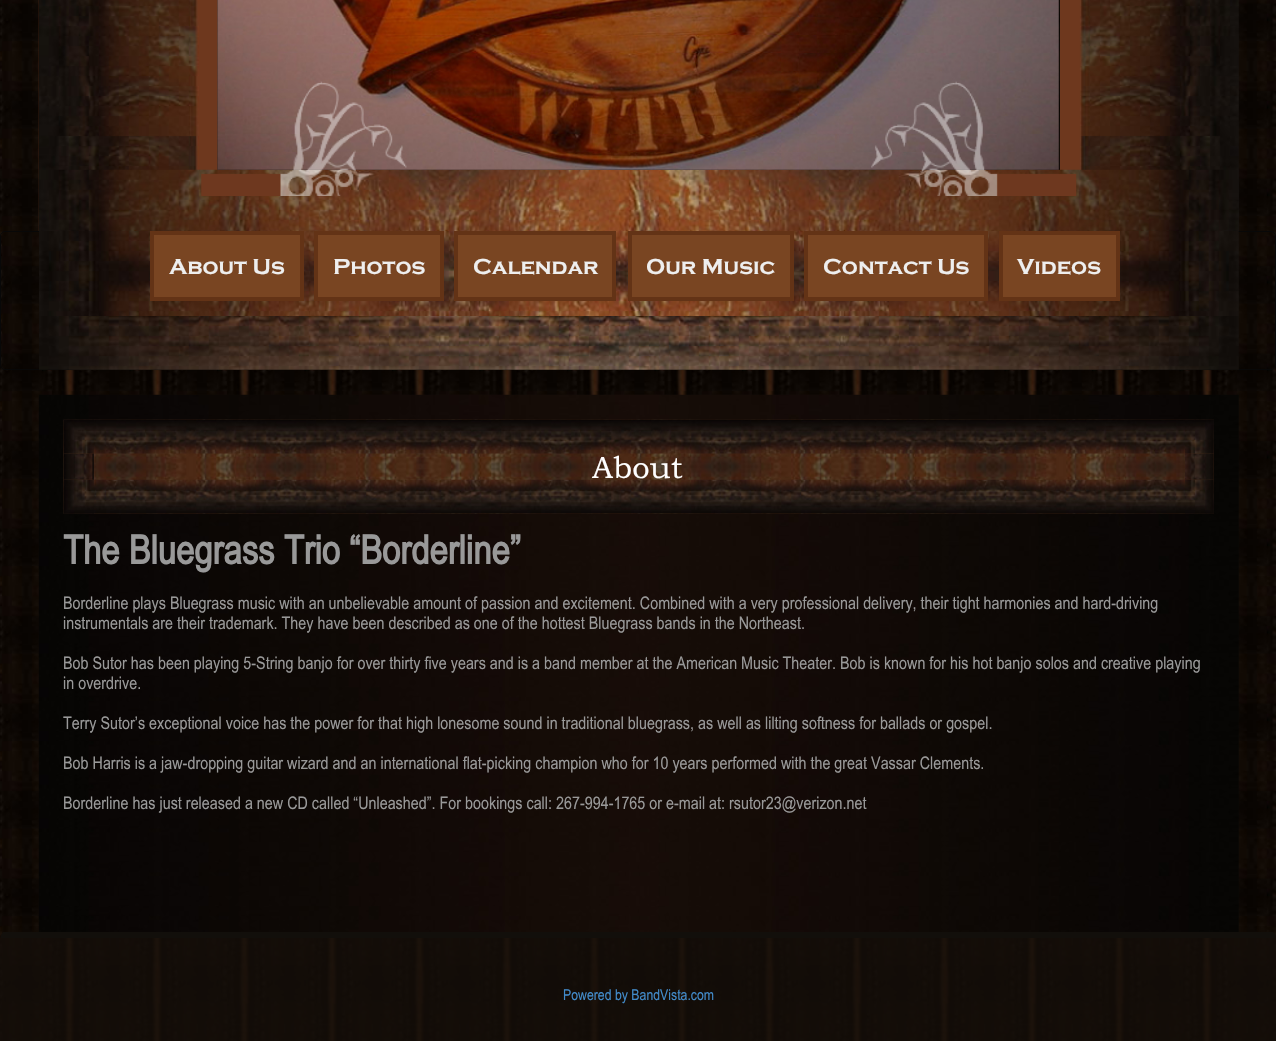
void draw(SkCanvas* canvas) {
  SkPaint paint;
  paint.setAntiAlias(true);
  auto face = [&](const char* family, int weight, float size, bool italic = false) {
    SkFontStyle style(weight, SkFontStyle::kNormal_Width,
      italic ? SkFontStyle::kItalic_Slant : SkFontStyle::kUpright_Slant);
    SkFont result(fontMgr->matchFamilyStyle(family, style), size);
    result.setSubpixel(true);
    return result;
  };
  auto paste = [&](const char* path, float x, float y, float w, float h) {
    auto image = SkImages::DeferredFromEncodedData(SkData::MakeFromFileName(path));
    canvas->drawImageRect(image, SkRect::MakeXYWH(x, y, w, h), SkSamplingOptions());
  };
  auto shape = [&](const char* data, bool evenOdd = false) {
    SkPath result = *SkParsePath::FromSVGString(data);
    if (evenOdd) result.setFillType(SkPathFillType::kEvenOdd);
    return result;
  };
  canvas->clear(0xffffffff);
  paste("img/1.png", 0, 0, 1276, 1041);
  paste("img/2.png", 38, 0, 1201, 231);
  paste("img/3.png", 217, 0, 842, 170);
  paste("img/4.png", 201, 81, 876, 115);
  paint.setStroke(true);
  paint.setStrokeWidth(1);
  paint.setColor(0xff080808);
  canvas->drawRoundRect(SkRect::MakeXYWH(0.5f, 231.5f, 1275, 138), 4.5f, 4.5f, paint);
  paste("img/5.png", 39, 316, 1200, 54);
  paste("img/6.png", 39, 231, 1200, 85);
  paint.setStroke(false);
  paint.setColor(0xff794522);
  canvas->drawRect(SkRect::MakeXYWH(152, 233, 150, 66), paint);
  paint.setStroke(true);
  paint.setStrokeWidth(4);
  paint.setColor(0xff633316);
  canvas->drawRect(SkRect::MakeXYWH(152, 233, 150, 66), paint);
  paint.setStroke(false);
  paint.setColor(0xff794522);
  canvas->drawRect(SkRect::MakeXYWH(316, 233, 126, 66), paint);
  paint.setStroke(true);
  paint.setColor(0xff633316);
  canvas->drawRect(SkRect::MakeXYWH(316, 233, 126, 66), paint);
  paint.setStroke(false);
  paint.setColor(0xff794522);
  canvas->drawRect(SkRect::MakeXYWH(456, 233, 158, 66), paint);
  paint.setStroke(true);
  paint.setColor(0xff633316);
  canvas->drawRect(SkRect::MakeXYWH(456, 233, 158, 66), paint);
  paint.setStroke(false);
  paint.setColor(0xff794522);
  canvas->drawRect(SkRect::MakeXYWH(630, 233, 162, 66), paint);
  paint.setStroke(true);
  paint.setColor(0xff633316);
  canvas->drawRect(SkRect::MakeXYWH(630, 233, 162, 66), paint);
  paint.setStroke(false);
  paint.setColor(0xff794522);
  canvas->drawRect(SkRect::MakeXYWH(806, 233, 180, 66), paint);
  paint.setStroke(true);
  paint.setColor(0xff633316);
  canvas->drawRect(SkRect::MakeXYWH(806, 233, 180, 66), paint);
  paint.setStroke(false);
  paint.setColor(0xff794522);
  canvas->drawRect(SkRect::MakeXYWH(1001, 233, 117, 66), paint);
  paint.setStroke(true);
  paint.setColor(0xff633316);
  canvas->drawRect(SkRect::MakeXYWH(1001, 233, 117, 66), paint);
  paste("img/7.png", 38, 394, 1201, 538);
  paste("img/8.png", 63, 419, 1151, 95);
  paint.setStroke(false);
  paint.setColor(0xcc140e09);
  canvas->drawRoundRect(SkRect::MakeXYWH(0, 933, 1276, 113), 5, 5, paint);
  paint.setColor(0xff120f0b);
  canvas->drawPath(shape("M1 935L3 932H1273L1276 935L1275 938H1Z"), paint);
  auto f0 = face("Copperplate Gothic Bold", 700, 22.5f);
  paint.setColor(0xffeeeeee);
  {
    const struct { const char* s; float x, y; } items[] = {
      {"About Us", 169, 274},
      {"Photos", 333, 274},
      {"Calendar", 473, 274},
      {"Our Music", 646, 274},
      {"Contact Us", 823, 274},
      {"Videos", 1017, 274},
    };
    for (auto [s, x, y] : items) {
      canvas->drawString(s, x, y, f0, paint);
    }
  }
  auto f1 = face("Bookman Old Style", 400, 31);
  paint.setColor(0xffffffff);
  canvas->drawString("About", 592, 478, f1, paint);
  auto f2 = face("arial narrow", 700, 40);
  paint.setColor(0xff999999);
  canvas->drawString("The Bluegrass Trio “Borderline”", 63, 564, f2, paint);
  auto f3 = face("arial narrow", 400, 17.5f);
  {
    const struct { const char* s; float x, y; } items[] = {
      {"Borderline plays Bluegrass music with an unbelievable amount of passion and excitement. Combined with a very professional delivery, their tight harmonies and hard-driving", 63, 609},
      {"instrumentals are their trademark. They have been described as one of the hottest Bluegrass bands in the Northeast.", 63, 629},
      {"Bob Sutor has been playing 5-String banjo for over thirty five years and is a band member at the American Music Theater. Bob is known for his hot banjo solos and creative playing", 63, 669},
      {"in overdrive.", 63, 689},
      {"Terry Sutor’s exceptional voice has the power for that high lonesome sound in traditional bluegrass, as well as lilting softness for ballads or gospel.", 63, 729},
      {"Bob Harris is a jaw-dropping guitar wizard and an international flat-picking champion who for 10 years performed with the great Vassar Clements.", 63, 769},
      {"Borderline has just released a new CD called “Unleashed”. For bookings call: 267-994-1765 or e-mail at: rsutor23@verizon.net", 63, 809},
    };
    for (auto [s, x, y] : items) {
      canvas->drawString(s, x, y, f3, paint);
    }
  }
  auto f4 = face("arial narrow", 400, 15);
  paint.setColor(0xff428bca);
  canvas->drawString("Powered by BandVista.com", 563, 1000, f4, paint);
}
